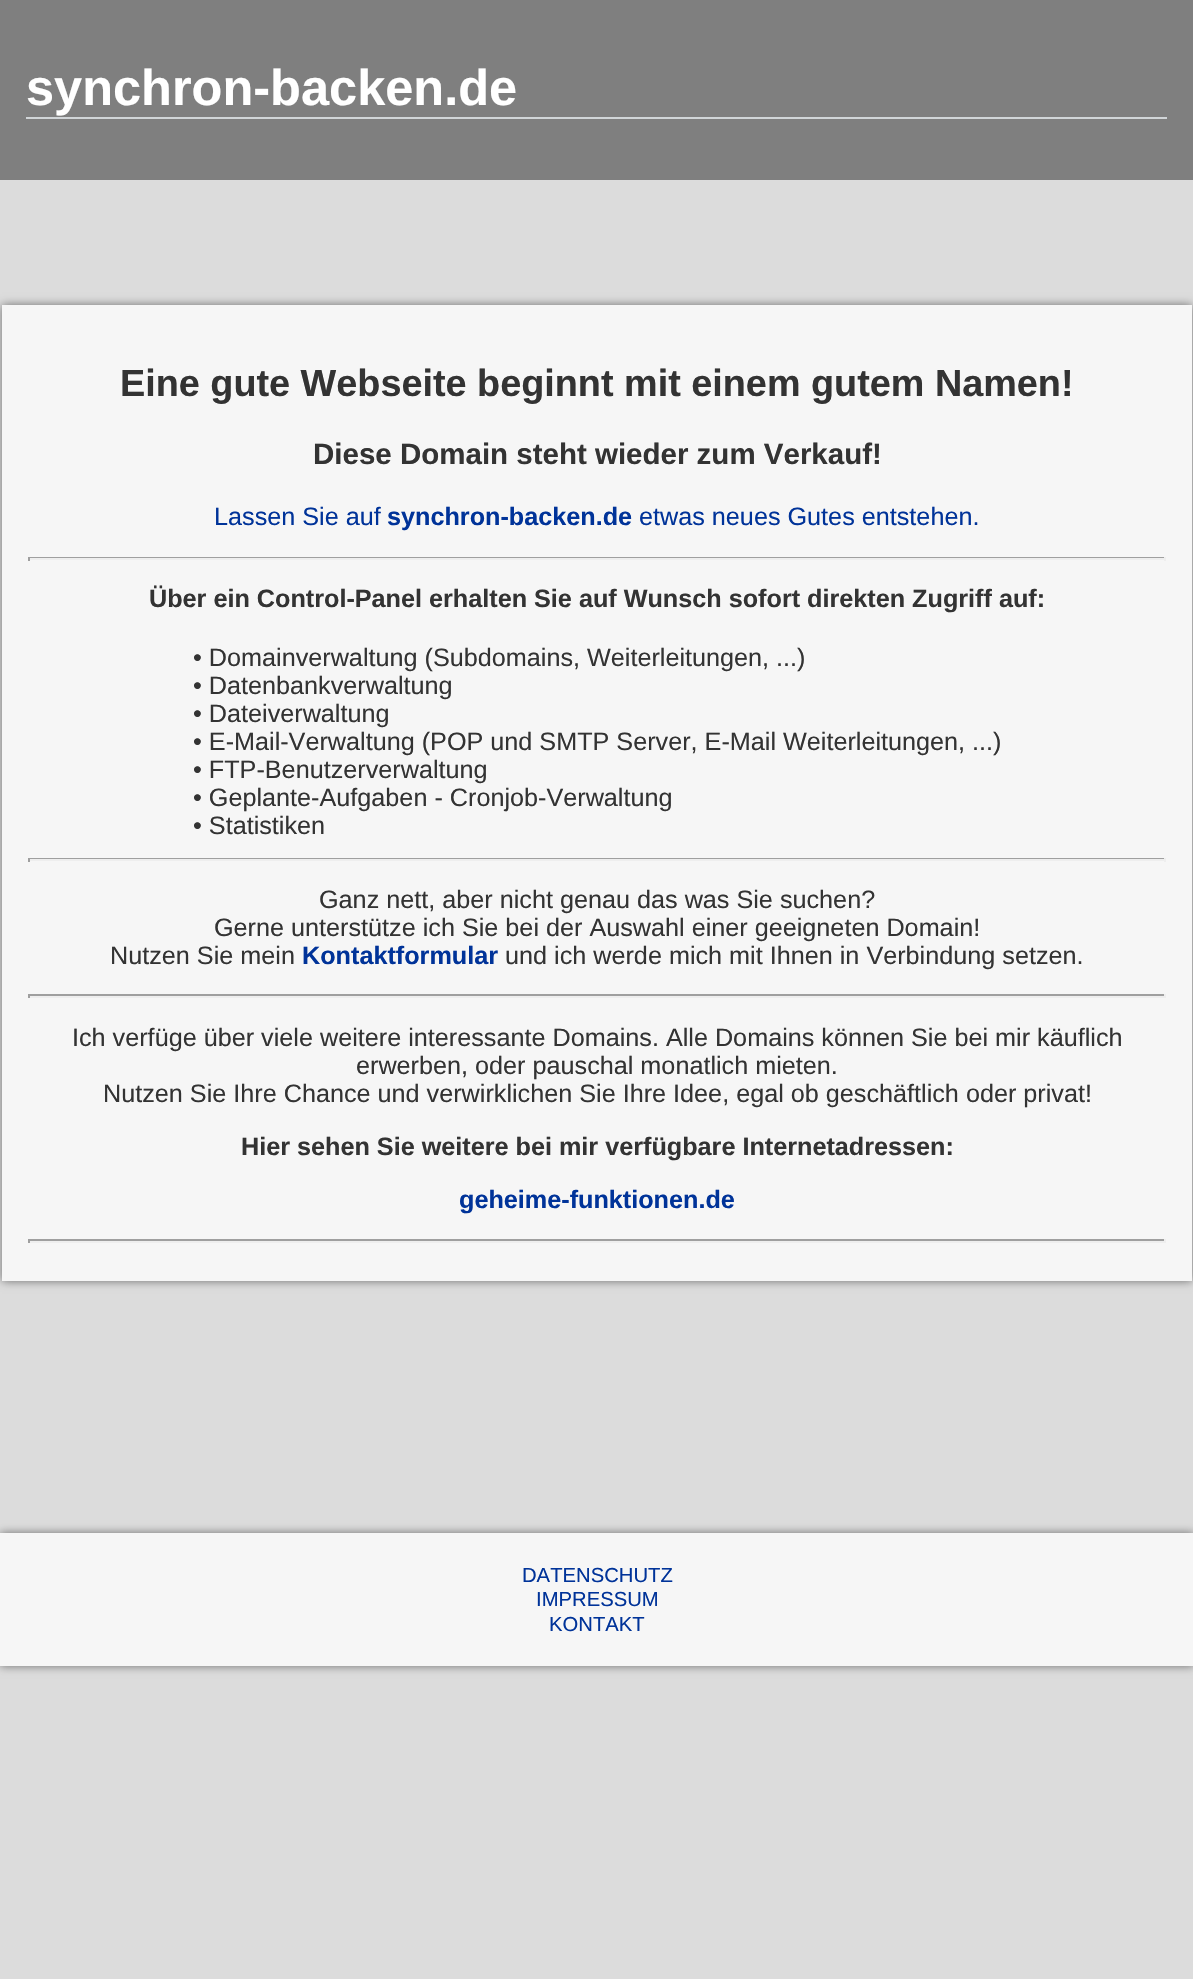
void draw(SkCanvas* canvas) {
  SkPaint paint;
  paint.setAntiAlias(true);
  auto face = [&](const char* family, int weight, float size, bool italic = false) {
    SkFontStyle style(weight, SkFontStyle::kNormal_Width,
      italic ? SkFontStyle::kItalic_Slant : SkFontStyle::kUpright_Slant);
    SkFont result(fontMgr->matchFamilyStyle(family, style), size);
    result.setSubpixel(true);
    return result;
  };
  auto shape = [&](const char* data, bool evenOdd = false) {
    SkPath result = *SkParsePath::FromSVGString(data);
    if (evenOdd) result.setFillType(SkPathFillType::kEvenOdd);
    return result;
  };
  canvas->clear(0xffdcdcdc);
  paint.setColor(0xff7f7f7f);
  canvas->drawRect(SkRect::MakeXYWH(0, 0, 1193, 180), paint);
  paint.setColor(0xffd1d5d8);
  canvas->drawRect(SkRect::MakeXYWH(26, 117, 1141, 2), paint);
  canvas->save();
  canvas->clipPath(shape("M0 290H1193V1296H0ZM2 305H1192V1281H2Z", true), true);
  paint.setColor(0x80000000);
  paint.setMaskFilter(SkMaskFilter::MakeBlur(kNormal_SkBlurStyle, 4.5f));
  canvas->drawRect(SkRect::MakeXYWH(2, 305, 1190, 976), paint);
  paint.setMaskFilter(nullptr);
  canvas->restore();
  {
    const struct { float x, y, w, h; SkColor color; } items[] = {
      {2, 305, 1190, 976, 0xbfffffff},
      {28, 557, 1138, 1, 0xff9f9f9f},
      {1164, 557, 2, 4, 0xffeeeeee},
      {28, 558, 1138, 2, 0xffeeeeee},
      {28, 557, 2, 4, 0xff9f9f9f},
      {28, 858, 1138, 1, 0xff9f9f9f},
      {1164, 858, 2, 4, 0xffeeeeee},
      {28, 859, 1138, 2, 0xffeeeeee},
      {28, 858, 2, 4, 0xff9f9f9f},
      {28, 994, 1138, 2, 0xff9f9f9f},
      {1164, 994, 2, 4, 0xffeeeeee},
      {28, 996, 1138, 2, 0xffeeeeee},
      {28, 994, 2, 4, 0xff9f9f9f},
      {28, 1239, 1138, 2, 0xff9f9f9f},
      {1164, 1239, 2, 4, 0xffeeeeee},
      {28, 1241, 1138, 2, 0xffeeeeee},
      {28, 1239, 2, 4, 0xff9f9f9f},
    };
    for (auto [x, y, w, h, color] : items) {
      paint.setColor(color);
      canvas->drawRect(SkRect::MakeXYWH(x, y, w, h), paint);
    }
  }
  paint.setColor(0x80000000);
  paint.setMaskFilter(SkMaskFilter::MakeBlur(kNormal_SkBlurStyle, 4.5f));
  canvas->drawRect(SkRect::MakeXYWH(0, 1533, 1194, 133), paint);
  paint.setMaskFilter(nullptr);
  paint.setColor(0xfff6f6f6);
  canvas->drawRect(SkRect::MakeXYWH(0, 1533, 1193, 133), paint);
  auto f0 = face("Liberation Sans", 700, 50.5f);
  paint.setColor(0xffffffff);
  canvas->drawString("synchron-backen.de", 26, 105, f0, paint);
  auto f1 = face("Liberation Sans", 700, 37.8f);
  paint.setColor(0xff333333);
  canvas->drawString("Eine gute Webseite beginnt mit einem gutem Namen!", 120, 396, f1, paint);
  auto f2 = face("Liberation Sans", 700, 29.5f);
  canvas->drawString("Diese Domain steht wieder zum Verkauf!", 313, 464, f2, paint);
  auto f3 = face("Liberation Sans", 400, 25.2f);
  paint.setColor(0xff003399);
  canvas->drawString("Lassen Sie auf", 214, 525, f3, paint);
  auto f4 = face("Liberation Sans", 700, 25.2f);
  canvas->drawString("synchron-backen.de", 387, 525, f4, paint);
  canvas->drawString("etwas neues Gutes entstehen.", 639, 525, f3, paint);
  paint.setColor(0xff333333);
  canvas->drawString("Über ein Control-Panel erhalten Sie auf Wunsch sofort direkten Zugriff auf:", 149, 607, f4, paint);
  {
    const struct { const char* s; float x, y; } items[] = {
      {"• Domainverwaltung (Subdomains, Weiterleitungen, ...)", 193, 666},
      {"• Datenbankverwaltung", 193, 694},
      {"• Dateiverwaltung", 193, 722},
      {"• E-Mail-Verwaltung (POP und SMTP Server, E-Mail Weiterleitungen, ...)", 193, 750},
      {"• FTP-Benutzerverwaltung", 193, 778},
      {"• Geplante-Aufgaben - Cronjob-Verwaltung", 193, 806},
      {"• Statistiken", 193, 834},
      {"Ganz nett, aber nicht genau das was Sie suchen?", 319, 908},
      {"Gerne unterstütze ich Sie bei der Auswahl einer geeigneten Domain!", 214, 936},
      {"Nutzen Sie mein", 110, 964},
    };
    for (auto [s, x, y] : items) {
      canvas->drawString(s, x, y, f3, paint);
    }
  }
  paint.setColor(0xff003399);
  canvas->drawString("Kontaktformular", 302, 964, f4, paint);
  paint.setColor(0xff333333);
  {
    const struct { const char* s; float x, y; } items[] = {
      {"und ich werde mich mit Ihnen in Verbindung setzen.", 505, 964},
      {"Ich verfüge über viele weitere interessante Domains. Alle Domains können Sie bei mir käuflich", 72, 1046},
      {"erwerben, oder pauschal monatlich mieten.", 356, 1074},
      {"Nutzen Sie Ihre Chance und verwirklichen Sie Ihre Idee, egal ob geschäftlich oder privat!", 103, 1102},
    };
    for (auto [s, x, y] : items) {
      canvas->drawString(s, x, y, f3, paint);
    }
  }
  canvas->drawString("Hier sehen Sie weitere bei mir verfügbare Internetadressen:", 241, 1155, f4, paint);
  paint.setColor(0xff003399);
  canvas->drawString("geheime-funktionen.de", 459, 1208, f4, paint);
  auto f5 = face("Liberation Sans", 400, 20.25f);
  {
    const struct { const char* s; float x, y; } items[] = {
      {"DATENSCHUTZ", 522, 1582},
      {"IMPRESSUM", 536, 1606},
      {"KONTAKT", 549, 1631},
    };
    for (auto [s, x, y] : items) {
      canvas->drawString(s, x, y, f5, paint);
    }
  }
}
